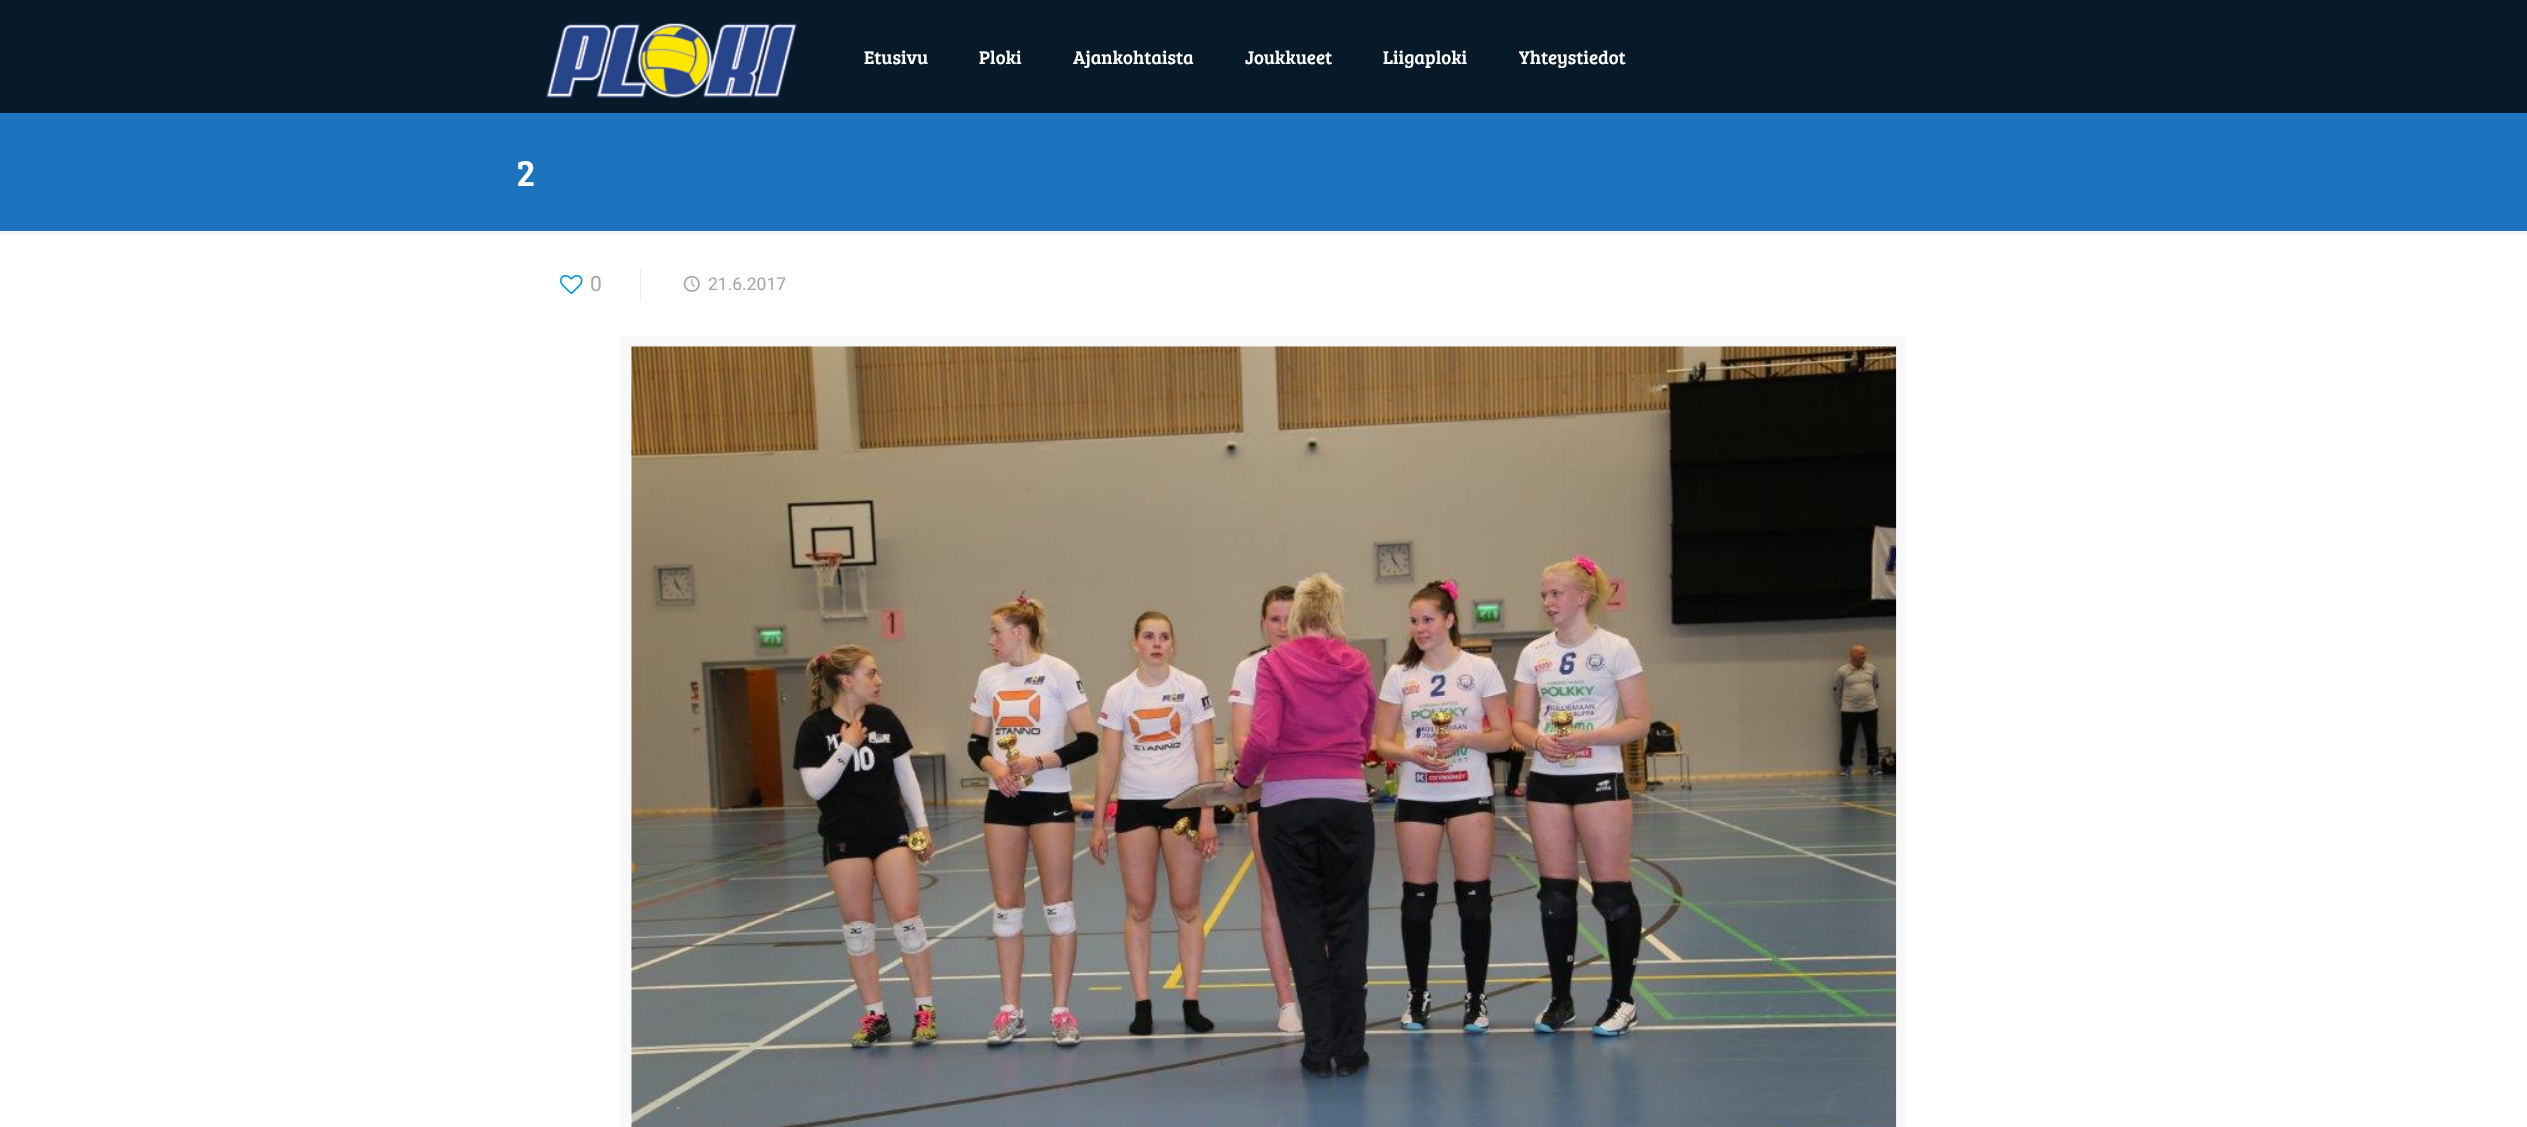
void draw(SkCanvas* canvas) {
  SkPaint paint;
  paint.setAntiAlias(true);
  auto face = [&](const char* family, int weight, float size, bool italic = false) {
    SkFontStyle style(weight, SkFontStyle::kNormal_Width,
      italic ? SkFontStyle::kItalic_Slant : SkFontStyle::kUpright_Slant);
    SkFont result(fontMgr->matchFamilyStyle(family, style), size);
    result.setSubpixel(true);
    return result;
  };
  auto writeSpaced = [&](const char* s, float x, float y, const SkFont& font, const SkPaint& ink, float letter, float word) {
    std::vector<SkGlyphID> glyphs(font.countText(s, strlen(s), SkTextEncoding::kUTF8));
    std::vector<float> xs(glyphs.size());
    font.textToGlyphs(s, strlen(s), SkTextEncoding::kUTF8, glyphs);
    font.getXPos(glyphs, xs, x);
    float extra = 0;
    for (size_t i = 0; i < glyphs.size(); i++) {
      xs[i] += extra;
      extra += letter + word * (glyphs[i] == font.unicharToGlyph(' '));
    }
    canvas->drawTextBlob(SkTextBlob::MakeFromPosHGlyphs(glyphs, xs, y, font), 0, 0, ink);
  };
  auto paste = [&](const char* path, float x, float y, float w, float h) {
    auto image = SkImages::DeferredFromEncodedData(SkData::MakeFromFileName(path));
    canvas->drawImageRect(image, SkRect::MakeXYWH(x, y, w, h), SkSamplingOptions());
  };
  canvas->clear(0xffffffff);
  paint.setColor(0xff071a2a);
  canvas->drawRect(SkRect::MakeXYWH(0, 0, 2527, 113), paint);
  paste("img/1.png", 546, 23, 252, 75);
  paint.setColor(0xff1e73be);
  canvas->drawRect(SkRect::MakeXYWH(0, 113, 2527, 118), paint);
  paint.setColor(0xfff5f5f5);
  canvas->drawRect(SkRect::MakeXYWH(0, 231, 2527, 3), paint);
  paste("img/2.png", 560, 275, 23, 20);
  paint.setColor(0xffebebeb);
  canvas->drawRect(SkRect::MakeXYWH(640, 269, 1, 32), paint);
  paste("img/3.png", 683, 275, 17, 17);
  paint.setStroke(true);
  paint.setStrokeWidth(10);
  paint.setColor(0xfff8f8f8);
  canvas->drawRect(SkRect::MakeXYWH(626, 341, 1275, 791), paint);
  paste("img/4.png", 631, 346, 1266, 781);
  auto f0 = face("Bree Serif", 400, 18.75f);
  paint.setStroke(false);
  paint.setColor(0xffffffff);
  {
    const struct { const char* s; float x, y; } items[] = {
      {"Etusivu", 864, 64},
      {"Ploki", 979, 64},
      {"Ajankohtaista", 1073, 64},
      {"Joukkueet", 1245, 64},
      {"Liigaploki", 1383, 64},
      {"Yhteystiedot", 1519, 64},
    };
    for (auto [s, x, y] : items) {
      canvas->drawString(s, x, y, f0, paint);
    }
  }
  auto f1 = face("Bree Serif", 400, 38);
  writeSpaced("2", 516, 186, f1, paint, 1, 0);
  auto f2 = face("Roboto", 400, 21);
  paint.setColor(0xffa8a8a8);
  canvas->drawString("0", 590, 291, f2, paint);
  auto f3 = face("Roboto", 400, 17.5f);
  canvas->drawString("21.6.2017", 708, 290, f3, paint);
}
